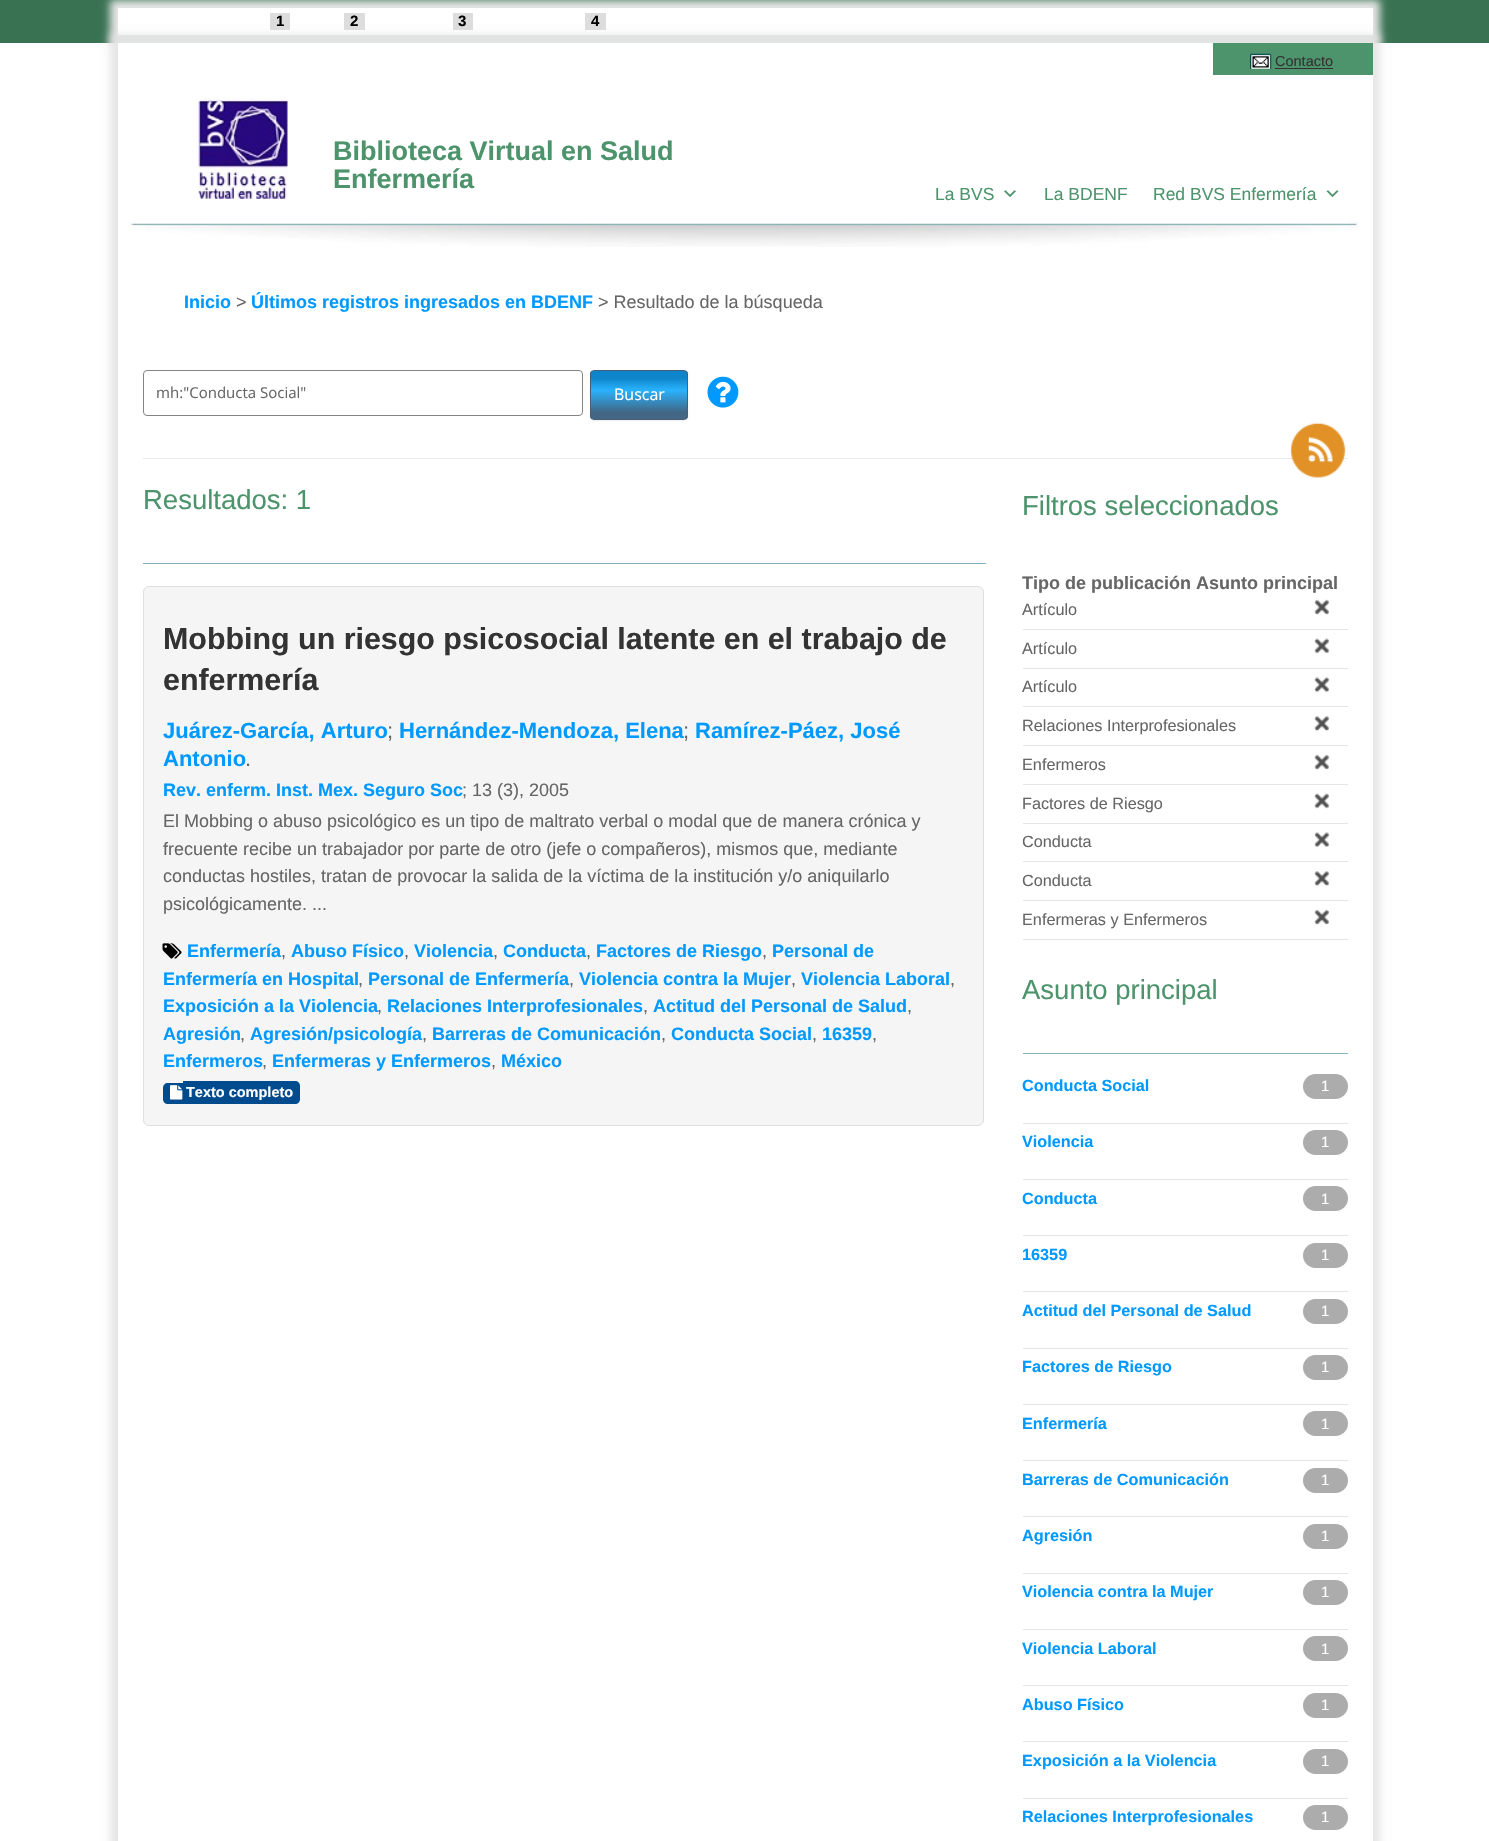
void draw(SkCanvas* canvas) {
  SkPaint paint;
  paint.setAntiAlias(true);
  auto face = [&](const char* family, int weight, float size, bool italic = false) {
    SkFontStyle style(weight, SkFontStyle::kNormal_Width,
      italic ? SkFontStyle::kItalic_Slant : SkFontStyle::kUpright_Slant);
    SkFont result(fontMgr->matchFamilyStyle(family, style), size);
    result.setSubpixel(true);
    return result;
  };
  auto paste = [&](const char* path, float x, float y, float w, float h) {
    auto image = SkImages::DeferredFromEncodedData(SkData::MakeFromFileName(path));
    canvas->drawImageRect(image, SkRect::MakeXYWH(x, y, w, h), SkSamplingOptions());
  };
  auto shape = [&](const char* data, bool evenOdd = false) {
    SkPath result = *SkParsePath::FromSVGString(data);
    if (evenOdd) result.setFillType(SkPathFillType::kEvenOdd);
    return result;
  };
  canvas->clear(0xffffffff);
  paint.setColor(0xff397253);
  canvas->drawRect(SkRect::MakeXYWH(0, 0, 1489, 43), paint);
  paint.setColor(0xffe6e6e6);
  paint.setMaskFilter(SkMaskFilter::MakeBlur(kNormal_SkBlurStyle, 4));
  canvas->drawRect(SkRect::MakeXYWH(110, 0, 1270, 43), paint);
  paint.setMaskFilter(nullptr);
  paint.setColor(0xffffffff);
  canvas->drawRect(SkRect::MakeXYWH(118, 8, 1255, 27), paint);
  paint.setColor(0xffe6e6e6);
  paint.setMaskFilter(SkMaskFilter::MakeBlur(kNormal_SkBlurStyle, 4));
  canvas->drawRect(SkRect::MakeXYWH(110, 35, 1270, 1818), paint);
  paint.setMaskFilter(nullptr);
  {
    const struct { float x, y, w, h; SkColor color; } items[] = {
      {270, 13, 20, 17, 0xffdddddd},
      {344, 13, 21, 17, 0xffdddddd},
      {453, 13, 20, 17, 0xffdddddd},
      {585, 13, 21, 17, 0xffdddddd},
      {118, 43, 1255, 1798, 0xffffffff},
      {1213, 43, 160, 32, 0xff4d946d},
    };
    for (auto [x, y, w, h, color] : items) {
      paint.setColor(color);
      canvas->drawRect(SkRect::MakeXYWH(x, y, w, h), paint);
    }
  }
  paste("img/1.png", 1250, 53, 22, 16);
  paint.setColor(0xff333333);
  canvas->drawRect(SkRect::MakeXYWH(1275, 68, 58, 1), paint);
  paste("img/2.png", 129, 220, 1230, 27);
  paste("img/3.png", 198, 97, 90, 102);
  paste("img/4.png", 1004, 190, 12, 8);
  paste("img/5.png", 1326, 190, 13, 8);
  paint.setColor(0xffeaeaea);
  canvas->drawRect(SkRect::MakeXYWH(143, 458, 1205, 1), paint);
  paint.setStroke(true);
  paint.setStrokeWidth(1);
  paint.setColor(0xff848484);
  canvas->drawRoundRect(SkRect::MakeXYWH(143.5f, 370.5f, 439, 45), 3.5f, 3.5f, paint);
  paint.setStroke(false);
  paint.setColor(0x1a404040);
  paint.setMaskFilter(SkMaskFilter::MakeBlur(kNormal_SkBlurStyle, 1));
  canvas->drawRoundRect(SkRect::MakeXYWH(590, 371, 98, 50), 4, 4, paint);
  paint.setMaskFilter(nullptr);
  canvas->save();
  canvas->clipPath(shape("M594 370H684C686 370 688 372 688 374V416C688 418 686 420 684 420H594C592 420 590 418 590 416V374C590 372 592 370 594 370Z"), true);
  {
    const SkColor colors[] = {0xff426684, 0xff29b3fd, 0xff0e85ca};
    const float stops[] = {0.14f, 0.6f, 0.85f};
    const SkPoint ends[] = {{591, 419}, {591, 371}};
    paint.setShader(SkGradientShader::MakeLinear(ends, colors, stops, 3, SkTileMode::kClamp));
    paint.setAlpha(255);
  }
  canvas->drawRect(SkRect::MakeXYWH(590, 371, 98, 48), paint);
  canvas->restore();
  paint.setStroke(true);
  paint.setShader(nullptr);
  paint.setColor(0xff475f78);
  canvas->drawRoundRect(SkRect::MakeXYWH(590.5f, 370.5f, 97, 49), 3.5f, 3.5f, paint);
  paste("img/6.png", 707, 376, 32, 32);
  paste("img/7.png", 1290, 422, 56, 56);
  paint.setStroke(false);
  paint.setColor(0xff8bb0c0);
  canvas->drawRect(SkRect::MakeXYWH(143, 563, 843, 1), paint);
  paint.setColor(0xfff5f5f5);
  canvas->drawRoundRect(SkRect::MakeXYWH(143.5f, 586.5f, 840, 539), 5.5f, 5.5f, paint);
  paint.setStroke(true);
  paint.setColor(0xffdfdfdf);
  canvas->drawRoundRect(SkRect::MakeXYWH(143.5f, 586.5f, 840, 539), 5.5f, 5.5f, paint);
  paste("img/8.png", 162, 943, 20, 16);
  paint.setStroke(false);
  paint.setColor(0xff004a8e);
  canvas->drawPath(shape("M168 1083H183V1104H168C165 1104 163 1102 163 1099V1088C163 1085 165 1083 168 1083Z"), paint);
  canvas->drawPath(shape("M183 1081H295C298 1081 300 1083 300 1086V1099C300 1102 298 1104 295 1104H183Z"), paint);
  paste("img/9.png", 170, 1085, 13, 15);
  paint.setColor(0xffe5e5e5);
  canvas->drawRect(SkRect::MakeXYWH(1023, 629, 325, 1), paint);
  paste("img/10.png", 1314, 599, 16, 16);
  canvas->drawRect(SkRect::MakeXYWH(1023, 668, 325, 1), paint);
  paste("img/11.png", 1314, 638, 16, 16);
  canvas->drawRect(SkRect::MakeXYWH(1023, 706, 325, 1), paint);
  paste("img/12.png", 1314, 677, 16, 16);
  canvas->drawRect(SkRect::MakeXYWH(1023, 745, 325, 1), paint);
  paste("img/13.png", 1314, 716, 16, 16);
  canvas->drawRect(SkRect::MakeXYWH(1023, 784, 325, 1), paint);
  paste("img/10.png", 1314, 754, 16, 16);
  canvas->drawRect(SkRect::MakeXYWH(1023, 823, 325, 1), paint);
  paste("img/11.png", 1314, 793, 16, 16);
  canvas->drawRect(SkRect::MakeXYWH(1023, 861, 325, 1), paint);
  paste("img/12.png", 1314, 832, 16, 16);
  canvas->drawRect(SkRect::MakeXYWH(1023, 900, 325, 1), paint);
  paste("img/13.png", 1314, 871, 16, 16);
  canvas->drawRect(SkRect::MakeXYWH(1023, 939, 325, 1), paint);
  paste("img/10.png", 1314, 909, 16, 16);
  paint.setColor(0xff8bb0c0);
  canvas->drawRect(SkRect::MakeXYWH(1023, 1053, 325, 1), paint);
  paint.setColor(0xffe5e5e5);
  canvas->drawRect(SkRect::MakeXYWH(1023, 1123, 325, 1), paint);
  paint.setColor(0xffacacac);
  canvas->drawRoundRect(SkRect::MakeXYWH(1303, 1074, 45, 25), 12.5f, 12.5f, paint);
  paint.setColor(0xffe5e5e5);
  canvas->drawRect(SkRect::MakeXYWH(1023, 1179, 325, 1), paint);
  paint.setColor(0xffacacac);
  canvas->drawRoundRect(SkRect::MakeXYWH(1303, 1130, 45, 25), 12.5f, 12.5f, paint);
  paint.setColor(0xffe5e5e5);
  canvas->drawRect(SkRect::MakeXYWH(1023, 1235, 325, 1), paint);
  paint.setColor(0xffacacac);
  canvas->drawRoundRect(SkRect::MakeXYWH(1303, 1186, 45, 25), 12.5f, 12.5f, paint);
  paint.setColor(0xffe5e5e5);
  canvas->drawRect(SkRect::MakeXYWH(1023, 1291, 325, 1), paint);
  paint.setColor(0xffacacac);
  canvas->drawRoundRect(SkRect::MakeXYWH(1303, 1243, 45, 25), 12.5f, 12.5f, paint);
  paint.setColor(0xffe5e5e5);
  canvas->drawRect(SkRect::MakeXYWH(1023, 1348, 325, 1), paint);
  paint.setColor(0xffacacac);
  canvas->drawRoundRect(SkRect::MakeXYWH(1303, 1299, 45, 25), 12.5f, 12.5f, paint);
  paint.setColor(0xffe5e5e5);
  canvas->drawRect(SkRect::MakeXYWH(1023, 1404, 325, 1), paint);
  paint.setColor(0xffacacac);
  canvas->drawRoundRect(SkRect::MakeXYWH(1303, 1355, 45, 25), 12.5f, 12.5f, paint);
  paint.setColor(0xffe5e5e5);
  canvas->drawRect(SkRect::MakeXYWH(1023, 1460, 325, 1), paint);
  paint.setColor(0xffacacac);
  canvas->drawRoundRect(SkRect::MakeXYWH(1303, 1411, 45, 25), 12.5f, 12.5f, paint);
  paint.setColor(0xffe5e5e5);
  canvas->drawRect(SkRect::MakeXYWH(1023, 1516, 325, 1), paint);
  paint.setColor(0xffacacac);
  canvas->drawRoundRect(SkRect::MakeXYWH(1303, 1468, 45, 25), 12.5f, 12.5f, paint);
  paint.setColor(0xffe5e5e5);
  canvas->drawRect(SkRect::MakeXYWH(1023, 1573, 325, 1), paint);
  paint.setColor(0xffacacac);
  canvas->drawRoundRect(SkRect::MakeXYWH(1303, 1524, 45, 25), 12.5f, 12.5f, paint);
  paint.setColor(0xffe5e5e5);
  canvas->drawRect(SkRect::MakeXYWH(1023, 1629, 325, 1), paint);
  paint.setColor(0xffacacac);
  canvas->drawRoundRect(SkRect::MakeXYWH(1303, 1580, 45, 25), 12.5f, 12.5f, paint);
  paint.setColor(0xffe5e5e5);
  canvas->drawRect(SkRect::MakeXYWH(1023, 1685, 325, 1), paint);
  paint.setColor(0xffacacac);
  canvas->drawRoundRect(SkRect::MakeXYWH(1303, 1636, 45, 25), 12.5f, 12.5f, paint);
  paint.setColor(0xffe5e5e5);
  canvas->drawRect(SkRect::MakeXYWH(1023, 1741, 325, 1), paint);
  paint.setColor(0xffacacac);
  canvas->drawRoundRect(SkRect::MakeXYWH(1303, 1693, 45, 25), 12.5f, 12.5f, paint);
  paint.setColor(0xffe5e5e5);
  canvas->drawRect(SkRect::MakeXYWH(1023, 1798, 325, 1), paint);
  paint.setColor(0xffacacac);
  canvas->drawRoundRect(SkRect::MakeXYWH(1303, 1749, 45, 25), 12.5f, 12.5f, paint);
  canvas->drawRoundRect(SkRect::MakeXYWH(1303, 1805, 45, 25), 12.5f, 12.5f, paint);
  auto f0 = face("Liberation Sans", 700, 15);
  paint.setColor(0xff000000);
  {
    const struct { const char* s; float x, y; } items[] = {
      {"1", 276, 26},
      {"2", 350, 26},
      {"3", 458, 26},
      {"4", 591, 26},
    };
    for (auto [s, x, y] : items) {
      canvas->drawString(s, x, y, f0, paint);
    }
  }
  auto f1 = face("Liberation Sans", 400, 14.5f);
  paint.setColor(0xff333333);
  canvas->drawString("Contacto", 1275, 66, f1, paint);
  auto f2 = face("Liberation Sans", 700, 27);
  paint.setColor(0xff4d946c);
  canvas->drawString("Biblioteca Virtual en Salud", 333, 160, f2, paint);
  canvas->drawString("Enfermería", 333, 188, f2, paint);
  auto f3 = face("Liberation Sans", 400, 17.5f);
  {
    const struct { const char* s; float x, y; } items[] = {
      {"La BVS", 935, 200},
      {"La BDENF", 1044, 200},
      {"Red BVS Enfermería", 1153, 200},
    };
    for (auto [s, x, y] : items) {
      canvas->drawString(s, x, y, f3, paint);
    }
  }
  auto f4 = face("Liberation Sans", 700, 18);
  paint.setColor(0xff0099ff);
  canvas->drawString("Inicio", 184, 308, f4, paint);
  auto f5 = face("Liberation Sans", 400, 18);
  paint.setColor(0xff666666);
  canvas->drawString(">", 236, 308, f5, paint);
  paint.setColor(0xff0099ff);
  canvas->drawString("Últimos registros ingresados en BDENF", 251, 308, f4, paint);
  paint.setColor(0xff666666);
  canvas->drawString("> Resultado de la búsqueda", 598, 308, f5, paint);
  auto f6 = face("Open Sans", 400, 15);
  canvas->drawString("mh:\"Conducta Social\"", 156, 398, f6, paint);
  auto f7 = face("Open Sans", 400, 16);
  paint.setColor(0xffffffff);
  canvas->drawString("Buscar", 614, 400, f7, paint);
  auto f8 = face("Liberation Sans", 400, 27.5f);
  paint.setColor(0xff4d946c);
  canvas->drawString("Resultados: 1", 143, 509, f8, paint);
  auto f9 = face("Liberation Sans", 700, 30.4f);
  paint.setColor(0xff333333);
  canvas->drawString("Mobbing un riesgo psicosocial latente en el trabajo de", 163, 649, f9, paint);
  canvas->drawString("enfermería", 163, 690, f9, paint);
  auto f10 = face("Liberation Sans", 700, 22);
  paint.setColor(0xff0099ff);
  canvas->drawString("Juárez-García, Arturo", 163, 738, f10, paint);
  auto f11 = face("Liberation Sans", 400, 22);
  paint.setColor(0xff666666);
  canvas->drawString(";", 387, 738, f11, paint);
  paint.setColor(0xff0099ff);
  canvas->drawString("Hernández-Mendoza, Elena", 399, 738, f10, paint);
  paint.setColor(0xff666666);
  canvas->drawString(";", 683, 738, f11, paint);
  paint.setColor(0xff0099ff);
  canvas->drawString("Ramírez-Páez, José", 695, 738, f10, paint);
  canvas->drawString("Antonio", 163, 766, f10, paint);
  paint.setColor(0xff666666);
  canvas->drawString(".", 245, 766, f11, paint);
  paint.setColor(0xff0099ff);
  canvas->drawString("Rev. enferm. Inst. Mex. Seguro Soc", 163, 796, f4, paint);
  paint.setColor(0xff666666);
  {
    const struct { const char* s; float x, y; } items[] = {
      {"; 13 (3), 2005", 462, 796},
      {"El Mobbing o abuso psicológico es un tipo de maltrato verbal o modal que de manera crónica y", 163, 827},
      {"frecuente recibe un trabajador por parte de otro (jefe o compañeros), mismos que, mediante", 163, 855},
      {"conductas hostiles, tratan de provocar la salida de la víctima de la institución y/o aniquilarlo", 163, 882},
      {"psicológicamente. ...", 163, 910},
    };
    for (auto [s, x, y] : items) {
      canvas->drawString(s, x, y, f5, paint);
    }
  }
  paint.setColor(0xff0099ff);
  canvas->drawString("Enfermería", 187, 957, f4, paint);
  paint.setColor(0xff666666);
  canvas->drawString(",", 281, 957, f5, paint);
  paint.setColor(0xff0099ff);
  canvas->drawString("Abuso Físico", 291, 957, f4, paint);
  paint.setColor(0xff666666);
  canvas->drawString(",", 404, 957, f5, paint);
  paint.setColor(0xff0099ff);
  canvas->drawString("Violencia", 414, 957, f4, paint);
  paint.setColor(0xff666666);
  canvas->drawString(",", 493, 957, f5, paint);
  paint.setColor(0xff0099ff);
  canvas->drawString("Conducta", 503, 957, f4, paint);
  paint.setColor(0xff666666);
  canvas->drawString(",", 586, 957, f5, paint);
  paint.setColor(0xff0099ff);
  canvas->drawString("Factores de Riesgo", 596, 957, f4, paint);
  paint.setColor(0xff666666);
  canvas->drawString(",", 762, 957, f5, paint);
  paint.setColor(0xff0099ff);
  canvas->drawString("Personal de", 772, 957, f4, paint);
  canvas->drawString("Enfermería en Hospital", 163, 985, f4, paint);
  paint.setColor(0xff666666);
  canvas->drawString(",", 358, 985, f5, paint);
  paint.setColor(0xff0099ff);
  canvas->drawString("Personal de Enfermería", 368, 985, f4, paint);
  paint.setColor(0xff666666);
  canvas->drawString(",", 569, 985, f5, paint);
  paint.setColor(0xff0099ff);
  canvas->drawString("Violencia contra la Mujer", 579, 985, f4, paint);
  paint.setColor(0xff666666);
  canvas->drawString(",", 791, 985, f5, paint);
  paint.setColor(0xff0099ff);
  canvas->drawString("Violencia Laboral", 801, 985, f4, paint);
  paint.setColor(0xff666666);
  canvas->drawString(",", 950, 985, f5, paint);
  paint.setColor(0xff0099ff);
  canvas->drawString("Exposición a la Violencia", 163, 1012, f4, paint);
  paint.setColor(0xff666666);
  canvas->drawString(",", 377, 1012, f5, paint);
  paint.setColor(0xff0099ff);
  canvas->drawString("Relaciones Interprofesionales", 387, 1012, f4, paint);
  paint.setColor(0xff666666);
  canvas->drawString(",", 643, 1012, f5, paint);
  paint.setColor(0xff0099ff);
  canvas->drawString("Actitud del Personal de Salud", 653, 1012, f4, paint);
  paint.setColor(0xff666666);
  canvas->drawString(",", 907, 1012, f5, paint);
  paint.setColor(0xff0099ff);
  canvas->drawString("Agresión", 163, 1040, f4, paint);
  paint.setColor(0xff666666);
  canvas->drawString(",", 240, 1040, f5, paint);
  paint.setColor(0xff0099ff);
  canvas->drawString("Agresión/psicología", 250, 1040, f4, paint);
  paint.setColor(0xff666666);
  canvas->drawString(",", 422, 1040, f5, paint);
  paint.setColor(0xff0099ff);
  canvas->drawString("Barreras de Comunicación", 432, 1040, f4, paint);
  paint.setColor(0xff666666);
  canvas->drawString(",", 661, 1040, f5, paint);
  paint.setColor(0xff0099ff);
  canvas->drawString("Conducta Social", 671, 1040, f4, paint);
  paint.setColor(0xff666666);
  canvas->drawString(",", 812, 1040, f5, paint);
  paint.setColor(0xff0099ff);
  canvas->drawString("16359", 822, 1040, f4, paint);
  paint.setColor(0xff666666);
  canvas->drawString(",", 872, 1040, f5, paint);
  paint.setColor(0xff0099ff);
  canvas->drawString("Enfermeros", 163, 1067, f4, paint);
  paint.setColor(0xff666666);
  canvas->drawString(",", 262, 1067, f5, paint);
  paint.setColor(0xff0099ff);
  canvas->drawString("Enfermeras y Enfermeros", 272, 1067, f4, paint);
  paint.setColor(0xff666666);
  canvas->drawString(",", 491, 1067, f5, paint);
  paint.setColor(0xff0099ff);
  canvas->drawString("México", 501, 1067, f4, paint);
  auto f12 = face("Liberation Sans", 700, 14.5f);
  paint.setColor(0xffffffff);
  canvas->drawString("Texto completo", 186, 1097, f12, paint);
  paint.setColor(0xff4d946c);
  canvas->drawString("Filtros seleccionados", 1022, 515, f8, paint);
  paint.setColor(0xff666666);
  canvas->drawString("Tipo de publicación Asunto principal", 1022, 589, f4, paint);
  auto f13 = face("Liberation Sans", 400, 16.25f);
  {
    const struct { const char* s; float x, y; } items[] = {
      {"Artículo", 1022, 615},
      {"Artículo", 1022, 654},
      {"Artículo", 1022, 692},
      {"Relaciones Interprofesionales", 1022, 731},
      {"Enfermeros", 1022, 770},
      {"Factores de Riesgo", 1022, 809},
      {"Conducta", 1022, 847},
      {"Conducta", 1022, 886},
      {"Enfermeras y Enfermeros", 1022, 925},
    };
    for (auto [s, x, y] : items) {
      canvas->drawString(s, x, y, f13, paint);
    }
  }
  paint.setColor(0xff4d946c);
  canvas->drawString("Asunto principal", 1022, 999, f8, paint);
  auto f14 = face("Liberation Sans", 700, 16.25f);
  paint.setColor(0xff0099ff);
  canvas->drawString("Conducta Social", 1022, 1091, f14, paint);
  auto f15 = face("Liberation Sans", 400, 15);
  paint.setColor(0xffffffff);
  canvas->drawString("1", 1321, 1091, f15, paint);
  paint.setColor(0xff0099ff);
  canvas->drawString("Violencia", 1022, 1147, f14, paint);
  paint.setColor(0xffffffff);
  canvas->drawString("1", 1321, 1147, f15, paint);
  paint.setColor(0xff0099ff);
  canvas->drawString("Conducta", 1022, 1204, f14, paint);
  paint.setColor(0xffffffff);
  canvas->drawString("1", 1321, 1204, f15, paint);
  paint.setColor(0xff0099ff);
  canvas->drawString("16359", 1022, 1260, f14, paint);
  paint.setColor(0xffffffff);
  canvas->drawString("1", 1321, 1260, f15, paint);
  paint.setColor(0xff0099ff);
  canvas->drawString("Actitud del Personal de Salud", 1022, 1316, f14, paint);
  paint.setColor(0xffffffff);
  canvas->drawString("1", 1321, 1316, f15, paint);
  paint.setColor(0xff0099ff);
  canvas->drawString("Factores de Riesgo", 1022, 1372, f14, paint);
  paint.setColor(0xffffffff);
  canvas->drawString("1", 1321, 1372, f15, paint);
  paint.setColor(0xff0099ff);
  canvas->drawString("Enfermería", 1022, 1429, f14, paint);
  paint.setColor(0xffffffff);
  canvas->drawString("1", 1321, 1429, f15, paint);
  paint.setColor(0xff0099ff);
  canvas->drawString("Barreras de Comunicación", 1022, 1485, f14, paint);
  paint.setColor(0xffffffff);
  canvas->drawString("1", 1321, 1485, f15, paint);
  paint.setColor(0xff0099ff);
  canvas->drawString("Agresión", 1022, 1541, f14, paint);
  paint.setColor(0xffffffff);
  canvas->drawString("1", 1321, 1541, f15, paint);
  paint.setColor(0xff0099ff);
  canvas->drawString("Violencia contra la Mujer", 1022, 1597, f14, paint);
  paint.setColor(0xffffffff);
  canvas->drawString("1", 1321, 1597, f15, paint);
  paint.setColor(0xff0099ff);
  canvas->drawString("Violencia Laboral", 1022, 1654, f14, paint);
  paint.setColor(0xffffffff);
  canvas->drawString("1", 1321, 1654, f15, paint);
  paint.setColor(0xff0099ff);
  canvas->drawString("Abuso Físico", 1022, 1710, f14, paint);
  paint.setColor(0xffffffff);
  canvas->drawString("1", 1321, 1710, f15, paint);
  paint.setColor(0xff0099ff);
  canvas->drawString("Exposición a la Violencia", 1022, 1766, f14, paint);
  paint.setColor(0xffffffff);
  canvas->drawString("1", 1321, 1766, f15, paint);
  paint.setColor(0xff0099ff);
  canvas->drawString("Relaciones Interprofesionales", 1022, 1822, f14, paint);
  paint.setColor(0xffffffff);
  canvas->drawString("1", 1321, 1822, f15, paint);
}
